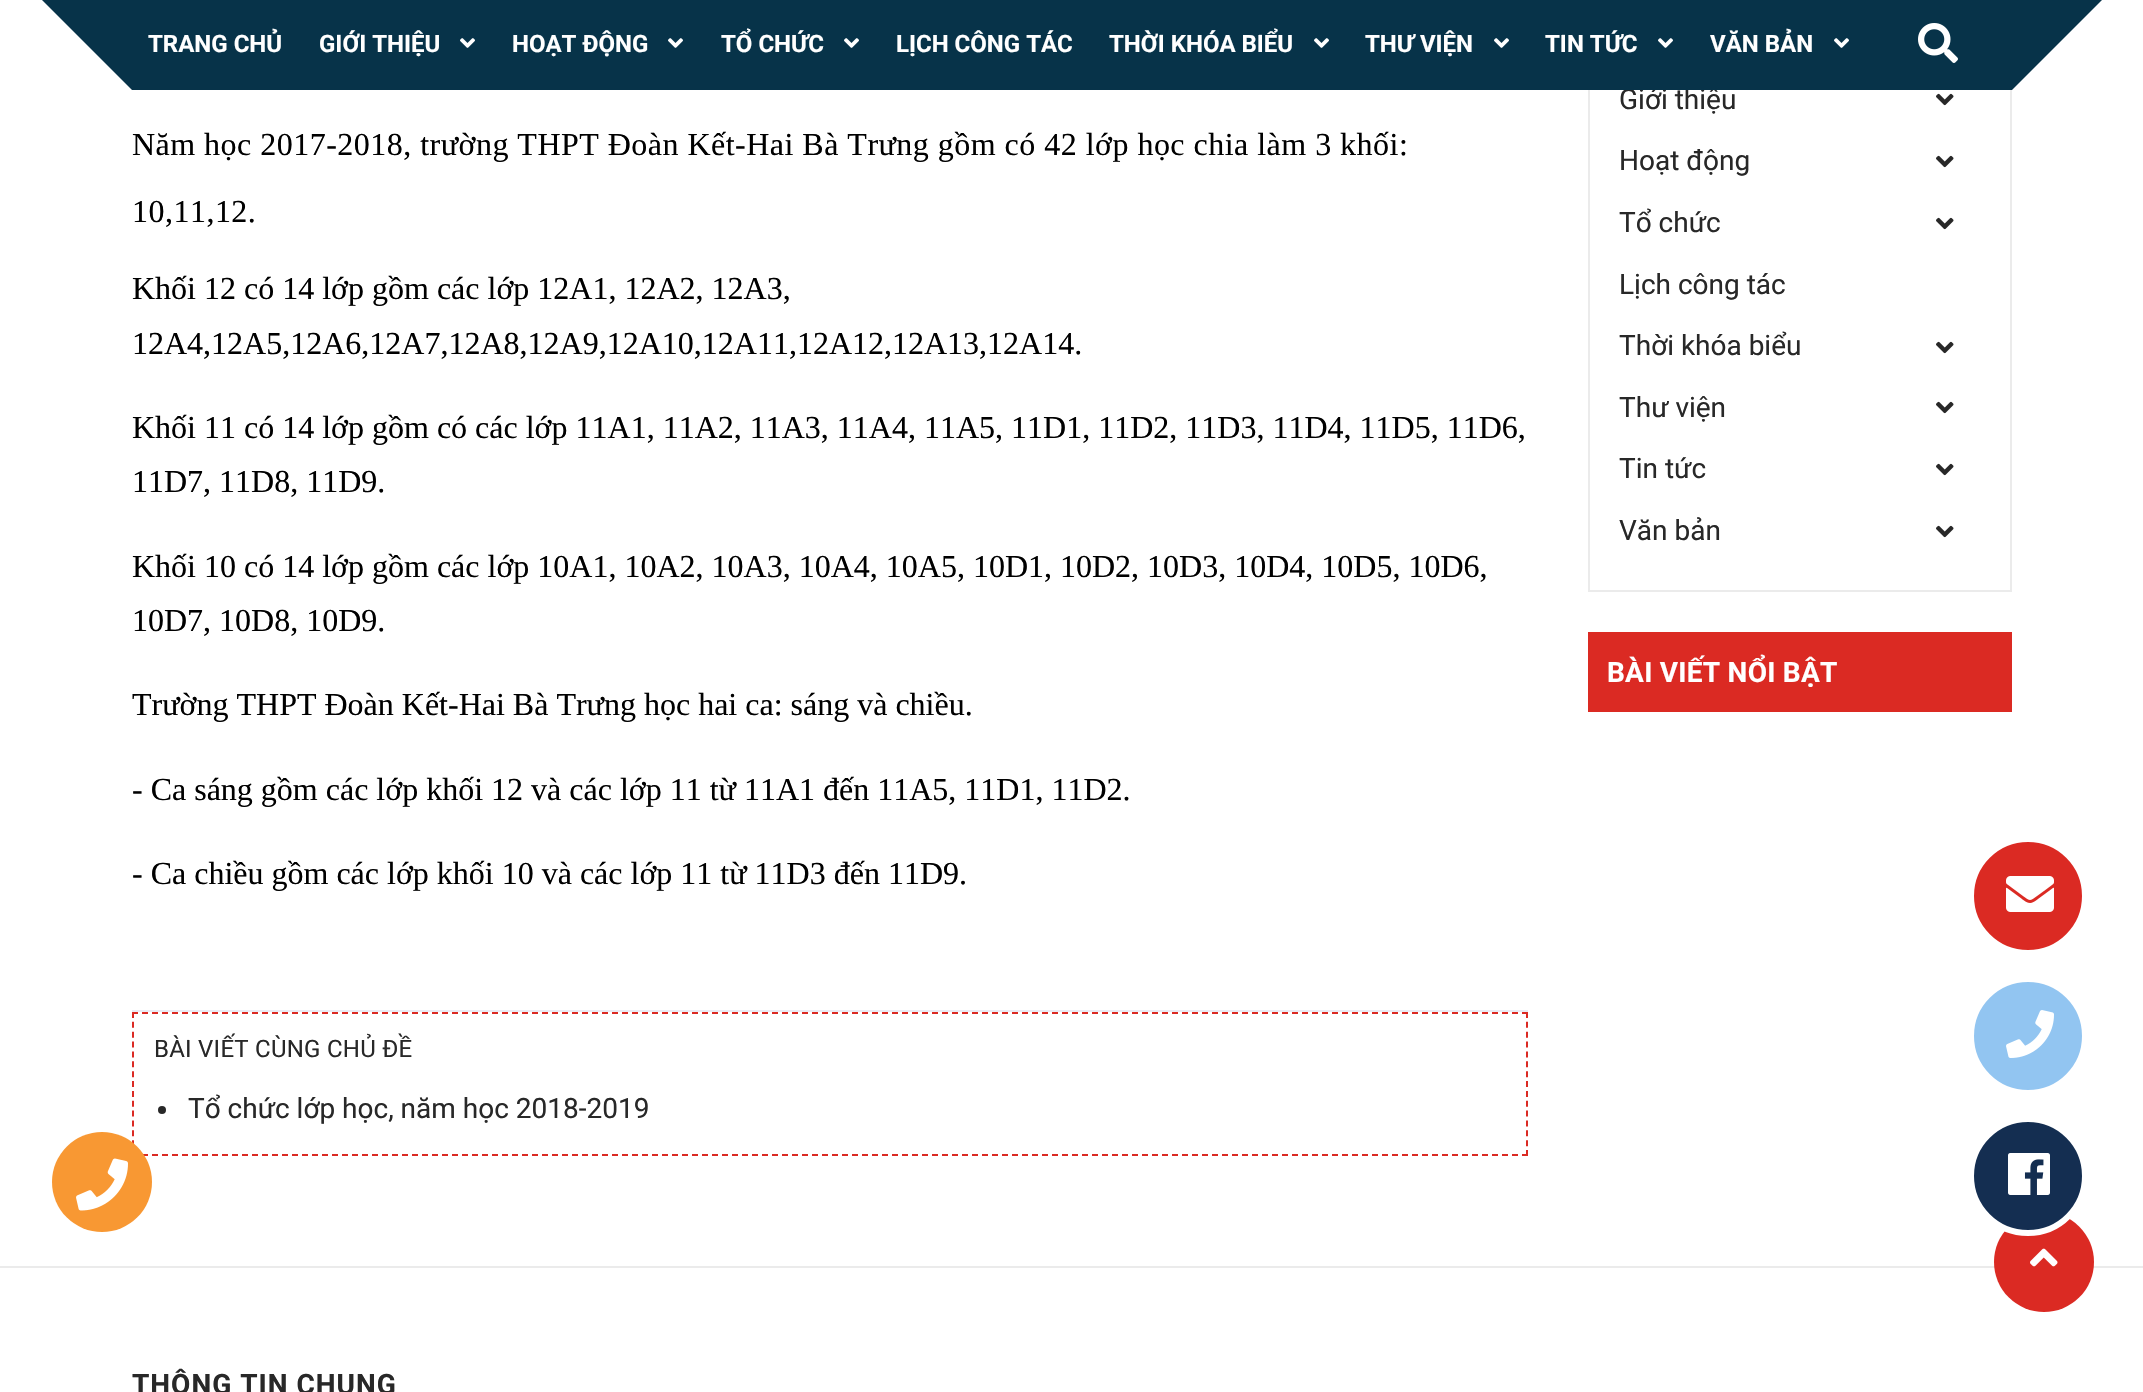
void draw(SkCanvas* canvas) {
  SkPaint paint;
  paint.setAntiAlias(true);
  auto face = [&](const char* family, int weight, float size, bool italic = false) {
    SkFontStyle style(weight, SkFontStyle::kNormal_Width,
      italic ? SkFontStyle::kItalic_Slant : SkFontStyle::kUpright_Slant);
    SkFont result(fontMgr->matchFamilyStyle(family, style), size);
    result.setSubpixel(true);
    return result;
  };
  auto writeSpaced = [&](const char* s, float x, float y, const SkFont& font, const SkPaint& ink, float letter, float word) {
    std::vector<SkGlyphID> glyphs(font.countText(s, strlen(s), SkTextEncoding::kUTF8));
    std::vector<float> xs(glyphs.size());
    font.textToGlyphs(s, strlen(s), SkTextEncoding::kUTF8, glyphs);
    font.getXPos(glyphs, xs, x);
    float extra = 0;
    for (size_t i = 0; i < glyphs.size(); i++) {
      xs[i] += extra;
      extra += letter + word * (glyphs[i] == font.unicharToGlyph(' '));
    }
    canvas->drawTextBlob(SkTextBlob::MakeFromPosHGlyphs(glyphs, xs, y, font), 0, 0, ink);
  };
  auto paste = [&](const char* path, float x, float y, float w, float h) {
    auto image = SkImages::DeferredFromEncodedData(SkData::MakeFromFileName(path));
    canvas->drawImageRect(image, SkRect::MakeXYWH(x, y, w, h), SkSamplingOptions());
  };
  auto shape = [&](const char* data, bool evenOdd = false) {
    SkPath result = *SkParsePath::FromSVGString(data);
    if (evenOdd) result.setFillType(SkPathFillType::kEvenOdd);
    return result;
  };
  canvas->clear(0xffffffff);
  paint.setColor(0xff073349);
  canvas->drawPath(shape("M132 0V90L42 0Z"), paint);
  canvas->drawPath(shape("M2012 0H2102L2012 90Z"), paint);
  paint.setStroke(true);
  paint.setStrokeWidth(2);
  paint.setColor(0xffdb2a23);
  paint.setPathEffect(SkDashPathEffect::Make({{6, 4}}, 0));
  canvas->drawPath(shape("M132 1013H1528"), paint);
  paint.setPathEffect(nullptr);
  paint.setPathEffect(SkDashPathEffect::Make({{6, 3.86f}}, 0));
  canvas->drawPath(shape("M1527 1012V1156"), paint);
  paint.setPathEffect(nullptr);
  paint.setPathEffect(SkDashPathEffect::Make({{6, 4}}, 0));
  canvas->drawPath(shape("M132 1155H1528"), paint);
  paint.setPathEffect(nullptr);
  paint.setPathEffect(SkDashPathEffect::Make({{6, 3.86f}}, 0));
  canvas->drawPath(shape("M133 1012V1156"), paint);
  paint.setPathEffect(nullptr);
  paint.setStroke(false);
  paint.setColor(0xfff89833);
  canvas->drawCircle(102, 1182, 50, paint);
  paste("img/3.png", 76, 1158, 52, 53);
  paint.setColor(0xffeaebf3);
  canvas->drawRect(SkRect::MakeXYWH(132, 1010, 1396, 2), paint);
  paint.setColor(0xff282828);
  canvas->drawCircle(162, 1110, 4, paint);
  paint.setStroke(true);
  paint.setColor(0xffebebeb);
  canvas->drawRect(SkRect::MakeXYWH(1589, 5, 422, 586), paint);
  paste("img/4.png", 1936, 93, 18, 13);
  paste("img/4.png", 1936, 155, 18, 13);
  paste("img/4.png", 1936, 217, 18, 13);
  paste("img/4.png", 1936, 341, 18, 13);
  paste("img/4.png", 1936, 401, 18, 13);
  paste("img/4.png", 1936, 463, 18, 13);
  paste("img/4.png", 1936, 525, 18, 13);
  paint.setStroke(false);
  paint.setColor(0xffdb2a23);
  canvas->drawRect(SkRect::MakeXYWH(1588, 632, 424, 80), paint);
  canvas->drawCircle(2028, 896, 57, paint);
  paint.setStroke(true);
  paint.setStrokeWidth(6);
  paint.setColor(0xffffffff);
  canvas->drawCircle(2028, 896, 57, paint);
  paste("img/5.png", 2006, 876, 48, 36);
  paint.setStroke(false);
  paint.setColor(0xff92c5f1);
  canvas->drawCircle(2028, 1036, 57, paint);
  paint.setStroke(true);
  paint.setColor(0xffffffff);
  canvas->drawCircle(2028, 1036, 57, paint);
  paste("img/6.png", 2006, 1010, 48, 48);
  paint.setStroke(false);
  paint.setColor(0xffebebeb);
  canvas->drawRect(SkRect::MakeXYWH(0, 1266, 2143, 2), paint);
  paint.setColor(0xffdb2a23);
  canvas->drawCircle(2044, 1262, 50, paint);
  paint.setColor(0xff142e51);
  canvas->drawCircle(2028, 1176, 57, paint);
  paint.setStroke(true);
  paint.setColor(0xffffffff);
  canvas->drawCircle(2028, 1176, 57, paint);
  paste("img/7.png", 2008, 1153, 42, 42);
  paste("img/8.png", 2030, 1248, 28, 19);
  auto f0 = face("Liberation Serif", 400, 32);
  paint.setStroke(false);
  paint.setColor(0xff000000);
  writeSpaced("Năm học 2017-2018, trường THPT Đoàn Kết-Hai Bà Trưng gồm có 42 lớp học chia làm 3 khối:", 132, 155, f0, paint, 0.48f, 0);
  writeSpaced("10,11,12.", 132, 222, f0, paint, 0.48f, 0);
  {
    const struct { const char* s; float x, y; } items[] = {
      {"Khối 12 có 14 lớp gồm các lớp 12A1, 12A2, 12A3,", 132, 299},
      {"12A4,12A5,12A6,12A7,12A8,12A9,12A10,12A11,12A12,12A13,12A14.", 132, 354},
      {"Khối 11 có 14 lớp gồm có các lớp 11A1, 11A2, 11A3, 11A4, 11A5, 11D1, 11D2, 11D3, 11D4, 11D5, 11D6,", 132, 438},
      {"11D7, 11D8, 11D9.", 132, 492},
      {"Khối 10 có 14 lớp gồm các lớp 10A1, 10A2, 10A3, 10A4, 10A5, 10D1, 10D2, 10D3, 10D4, 10D5, 10D6,", 132, 577},
      {"10D7, 10D8, 10D9.", 132, 631},
      {"Trường THPT Đoàn Kết-Hai Bà Trưng học hai ca: sáng và chiều.", 132, 715},
      {"- Ca sáng gồm các lớp khối 12 và các lớp 11 từ 11A1 đến 11A5, 11D1, 11D2.", 132, 800},
      {"- Ca chiều gồm các lớp khối 10 và các lớp 11 từ 11D3 đến 11D9.", 132, 884},
    };
    for (auto [s, x, y] : items) {
      canvas->drawString(s, x, y, f0, paint);
    }
  }
  auto f1 = face("Roboto", 400, 24);
  paint.setColor(0xff282828);
  writeSpaced("BÀI VIẾT CÙNG CHỦ ĐỀ", 154, 1057, f1, paint, 0.25f, 0);
  auto f2 = face("Roboto", 400, 28);
  canvas->drawString("Tổ chức lớp học, năm học 2018-2019", 188, 1118, f2, paint);
  canvas->drawString("Giới thiệu", 1619, 109, f2, paint);
  paint.setColor(0xff073349);
  canvas->drawRect(SkRect::MakeXYWH(132, 0, 1880, 90), paint);
  paste("img/2.png", 1918, 23, 40, 40);
  paste("img/1.png", 1834, 38, 15, 10);
  auto f3 = face("Roboto", 700, 24);
  paint.setColor(0xffffffff);
  canvas->drawString("VĂN BẢN", 1710, 52, f3, paint);
  paste("img/1.png", 1658, 38, 15, 10);
  canvas->drawString("TIN TỨC", 1545, 52, f3, paint);
  paste("img/1.png", 1494, 38, 15, 10);
  canvas->drawString("THƯ VIỆN", 1365, 52, f3, paint);
  paste("img/1.png", 1314, 38, 15, 10);
  canvas->drawString("THỜI KHÓA BIỂU", 1109, 52, f3, paint);
  canvas->drawString("LỊCH CÔNG TÁC", 896, 52, f3, paint);
  paste("img/1.png", 844, 38, 15, 10);
  canvas->drawString("TỔ CHỨC", 721, 52, f3, paint);
  paste("img/1.png", 668, 38, 15, 10);
  canvas->drawString("HOẠT ĐỘNG", 512, 52, f3, paint);
  paste("img/1.png", 460, 38, 15, 10);
  canvas->drawString("GIỚI THIỆU", 319, 52, f3, paint);
  canvas->drawString("TRANG CHỦ", 148, 52, f3, paint);
  paint.setColor(0xff282828);
  {
    const struct { const char* s; float x, y; } items[] = {
      {"Hoạt động", 1619, 170},
      {"Tổ chức", 1619, 232},
      {"Lịch công tác", 1619, 294},
      {"Thời khóa biểu", 1619, 355},
      {"Thư viện", 1619, 417},
      {"Tin tức", 1619, 478},
      {"Văn bản", 1619, 540},
    };
    for (auto [s, x, y] : items) {
      canvas->drawString(s, x, y, f2, paint);
    }
  }
  auto f4 = face("Roboto", 700, 28);
  paint.setColor(0xffffffff);
  writeSpaced("BÀI VIẾT NỔI BẬT", 1607, 682, f4, paint, 0.25f, 0);
  paint.setColor(0xff282828);
  writeSpaced("THÔNG TIN CHUNG", 132, 1394, f4, paint, 1, 0);
}
